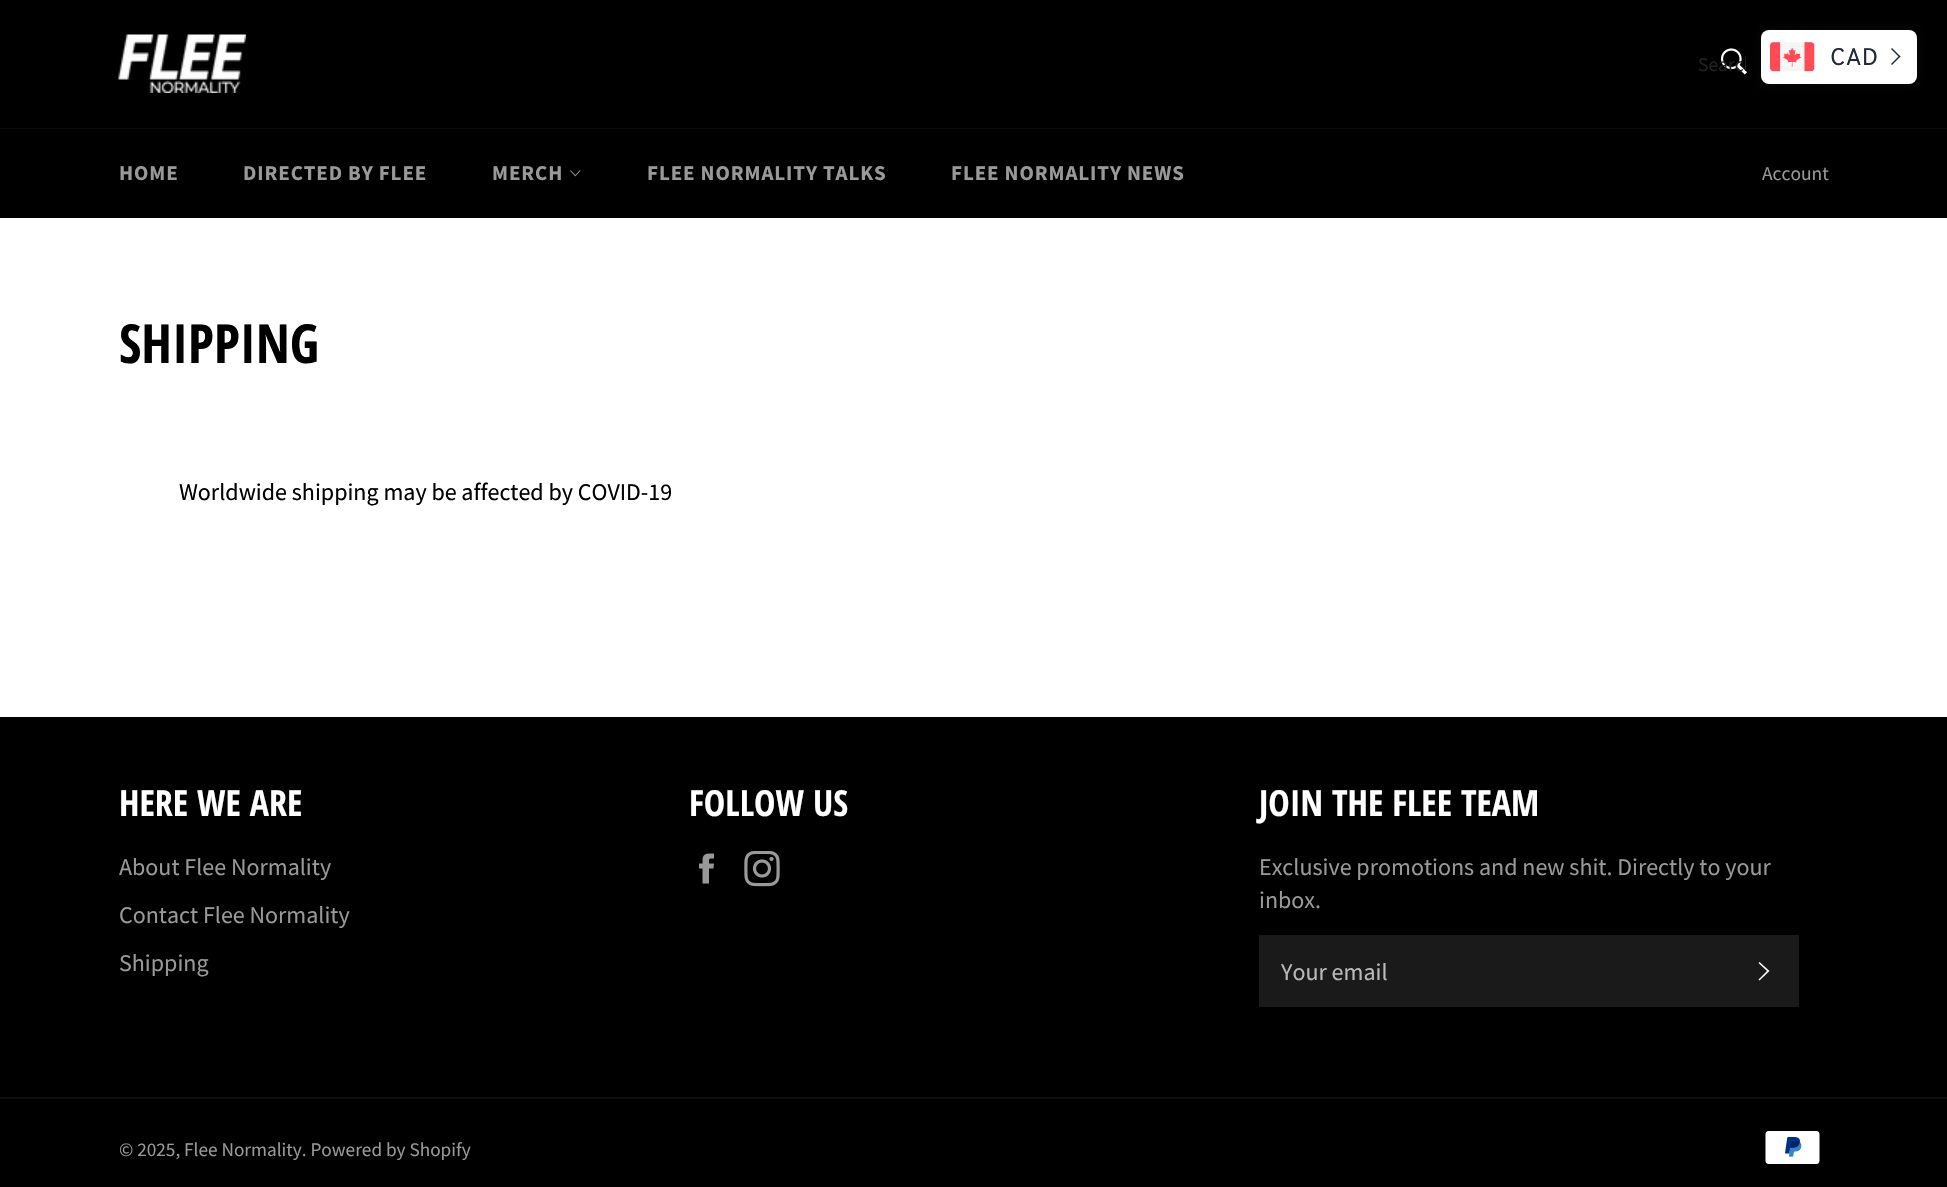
void draw(SkCanvas* canvas) {
  SkPaint paint;
  paint.setAntiAlias(true);
  auto face = [&](const char* family, int weight, float size, bool italic = false) {
    SkFontStyle style(weight, SkFontStyle::kNormal_Width,
      italic ? SkFontStyle::kItalic_Slant : SkFontStyle::kUpright_Slant);
    SkFont result(fontMgr->matchFamilyStyle(family, style), size);
    result.setSubpixel(true);
    return result;
  };
  auto writeSpaced = [&](const char* s, float x, float y, const SkFont& font, const SkPaint& ink, float letter, float word) {
    std::vector<SkGlyphID> glyphs(font.countText(s, strlen(s), SkTextEncoding::kUTF8));
    std::vector<float> xs(glyphs.size());
    font.textToGlyphs(s, strlen(s), SkTextEncoding::kUTF8, glyphs);
    font.getXPos(glyphs, xs, x);
    float extra = 0;
    for (size_t i = 0; i < glyphs.size(); i++) {
      xs[i] += extra;
      extra += letter + word * (glyphs[i] == font.unicharToGlyph(' '));
    }
    canvas->drawTextBlob(SkTextBlob::MakeFromPosHGlyphs(glyphs, xs, y, font), 0, 0, ink);
  };
  auto paste = [&](const char* path, float x, float y, float w, float h) {
    auto image = SkImages::DeferredFromEncodedData(SkData::MakeFromFileName(path));
    canvas->drawImageRect(image, SkRect::MakeXYWH(x, y, w, h), SkSamplingOptions());
  };
  auto shape = [&](const char* data, bool evenOdd = false) {
    SkPath result = *SkParsePath::FromSVGString(data);
    if (evenOdd) result.setFillType(SkPathFillType::kEvenOdd);
    return result;
  };
  canvas->clear(0xffffffff);
  paint.setColor(0xff000000);
  canvas->drawRect(SkRect::MakeXYWH(0, 0, 1947, 128), paint);
  paste("img/1.png", 118, 34, 128, 59);
  paste("img/2.png", 1720, 48, 27, 27);
  paint.setColor(0xff0d0d0d);
  canvas->drawRect(SkRect::MakeXYWH(0, 128, 1947, 1), paint);
  paint.setColor(0xff000000);
  canvas->drawRect(SkRect::MakeXYWH(0, 129, 1947, 89), paint);
  paste("img/3.png", 570, 170, 11, 7);
  paint.setColor(0x40212b36);
  paint.setMaskFilter(SkMaskFilter::MakeBlur(kNormal_SkBlurStyle, 4));
  canvas->drawRoundRect(SkRect::MakeXYWH(1761, 30, 156, 54), 8, 8, paint);
  paint.setMaskFilter(nullptr);
  paint.setColor(0xffffffff);
  canvas->drawRoundRect(SkRect::MakeXYWH(1761, 30, 156, 54), 8, 8, paint);
  paste("img/4.png", 1770, 42, 45, 30);
  paint.setColor(0xff212b36);
  canvas->drawPath(shape("M1891 49L1892 48L1900.5 56.5L1899.5 57.5Z"), paint);
  canvas->drawPath(shape("M1891 64L1899.5 55.5L1900.5 56.5L1892 65Z"), paint);
  paint.setColor(0xff000000);
  canvas->drawRect(SkRect::MakeXYWH(0, 717, 1947, 470), paint);
  paste("img/5.png", 699, 853, 15, 31);
  paste("img/6.png", 744, 851, 36, 36);
  paint.setColor(0xff1a1a1a);
  canvas->drawRect(SkRect::MakeXYWH(1259, 935, 540, 72), paint);
  paint.setColor(0xffffffff);
  canvas->drawPath(shape("M1758.5 963L1759.5 962L1769.5 971L1759.5 980.5L1758.5 979.5L1767 971Z"), paint);
  paint.setColor(0xff0d0d0d);
  canvas->drawRect(SkRect::MakeXYWH(0, 1097, 1947, 2), paint);
  paste("img/7.png", 1765, 1131, 55, 33);
  canvas->save();
  canvas->clipRect(SkRect::MakeXYWH(1698, 51, 48, 26));
  auto f0 = face("Source Sans Pro", 400, 19.5f);
  paint.setColor(0xff222222);
  canvas->drawString("Search", 1698, 71, f0, paint);
  canvas->restore();
  auto f1 = face("Source Sans Pro", 700, 21);
  paint.setColor(0xff999999);
  {
    const struct { const char* s; float x, y; } items[] = {
      {"HOME", 119, 180},
      {"DIRECTED BY FLEE", 243, 180},
      {"MERCH", 492, 180},
      {"FLEE NORMALITY TALKS", 647, 180},
      {"FLEE NORMALITY NEWS", 951, 180},
    };
    for (auto [s, x, y] : items) {
      writeSpaced(s, x, y, f1, paint, 0.9f, 0);
    }
  }
  canvas->drawString("Account", 1762, 180, f0, paint);
  auto f2 = face("Overpass", 400, 24);
  paint.setColor(0xff212b36);
  canvas->drawString("CAD", 1830, 65, f2, paint);
  auto f3 = face("Open Sans Condensed", 700, 54);
  paint.setColor(0xff000000);
  canvas->drawString("SHIPPING", 119, 363, f3, paint);
  auto f4 = face("Source Sans Pro", 400, 24);
  canvas->drawString("Worldwide shipping may be affected by COVID-19", 179, 500, f4, paint);
  auto f5 = face("Open Sans Condensed", 700, 36);
  paint.setColor(0xffffffff);
  canvas->drawString("HERE WE ARE", 119, 816, f5, paint);
  paint.setColor(0xff999999);
  {
    const struct { const char* s; float x, y; } items[] = {
      {"About Flee Normality", 119, 875},
      {"Contact Flee Normality", 119, 923},
      {"Shipping", 119, 971},
    };
    for (auto [s, x, y] : items) {
      canvas->drawString(s, x, y, f4, paint);
    }
  }
  paint.setColor(0xffffffff);
  canvas->drawString("FOLLOW US", 689, 816, f5, paint);
  canvas->drawString("JOIN THE FLEE TEAM", 1259, 816, f5, paint);
  paint.setColor(0xff999999);
  canvas->drawString("Exclusive promotions and new shit. Directly to your", 1259, 875, f4, paint);
  canvas->drawString("inbox.", 1259, 908, f4, paint);
  paint.setColor(0xffbababa);
  canvas->drawString("Your email", 1281, 980, f4, paint);
  auto f6 = face("Source Sans Pro", 400, 19.25f);
  paint.setColor(0xff999999);
  canvas->drawString("© 2025, Flee Normality. Powered by Shopify", 119, 1156, f6, paint);
}
